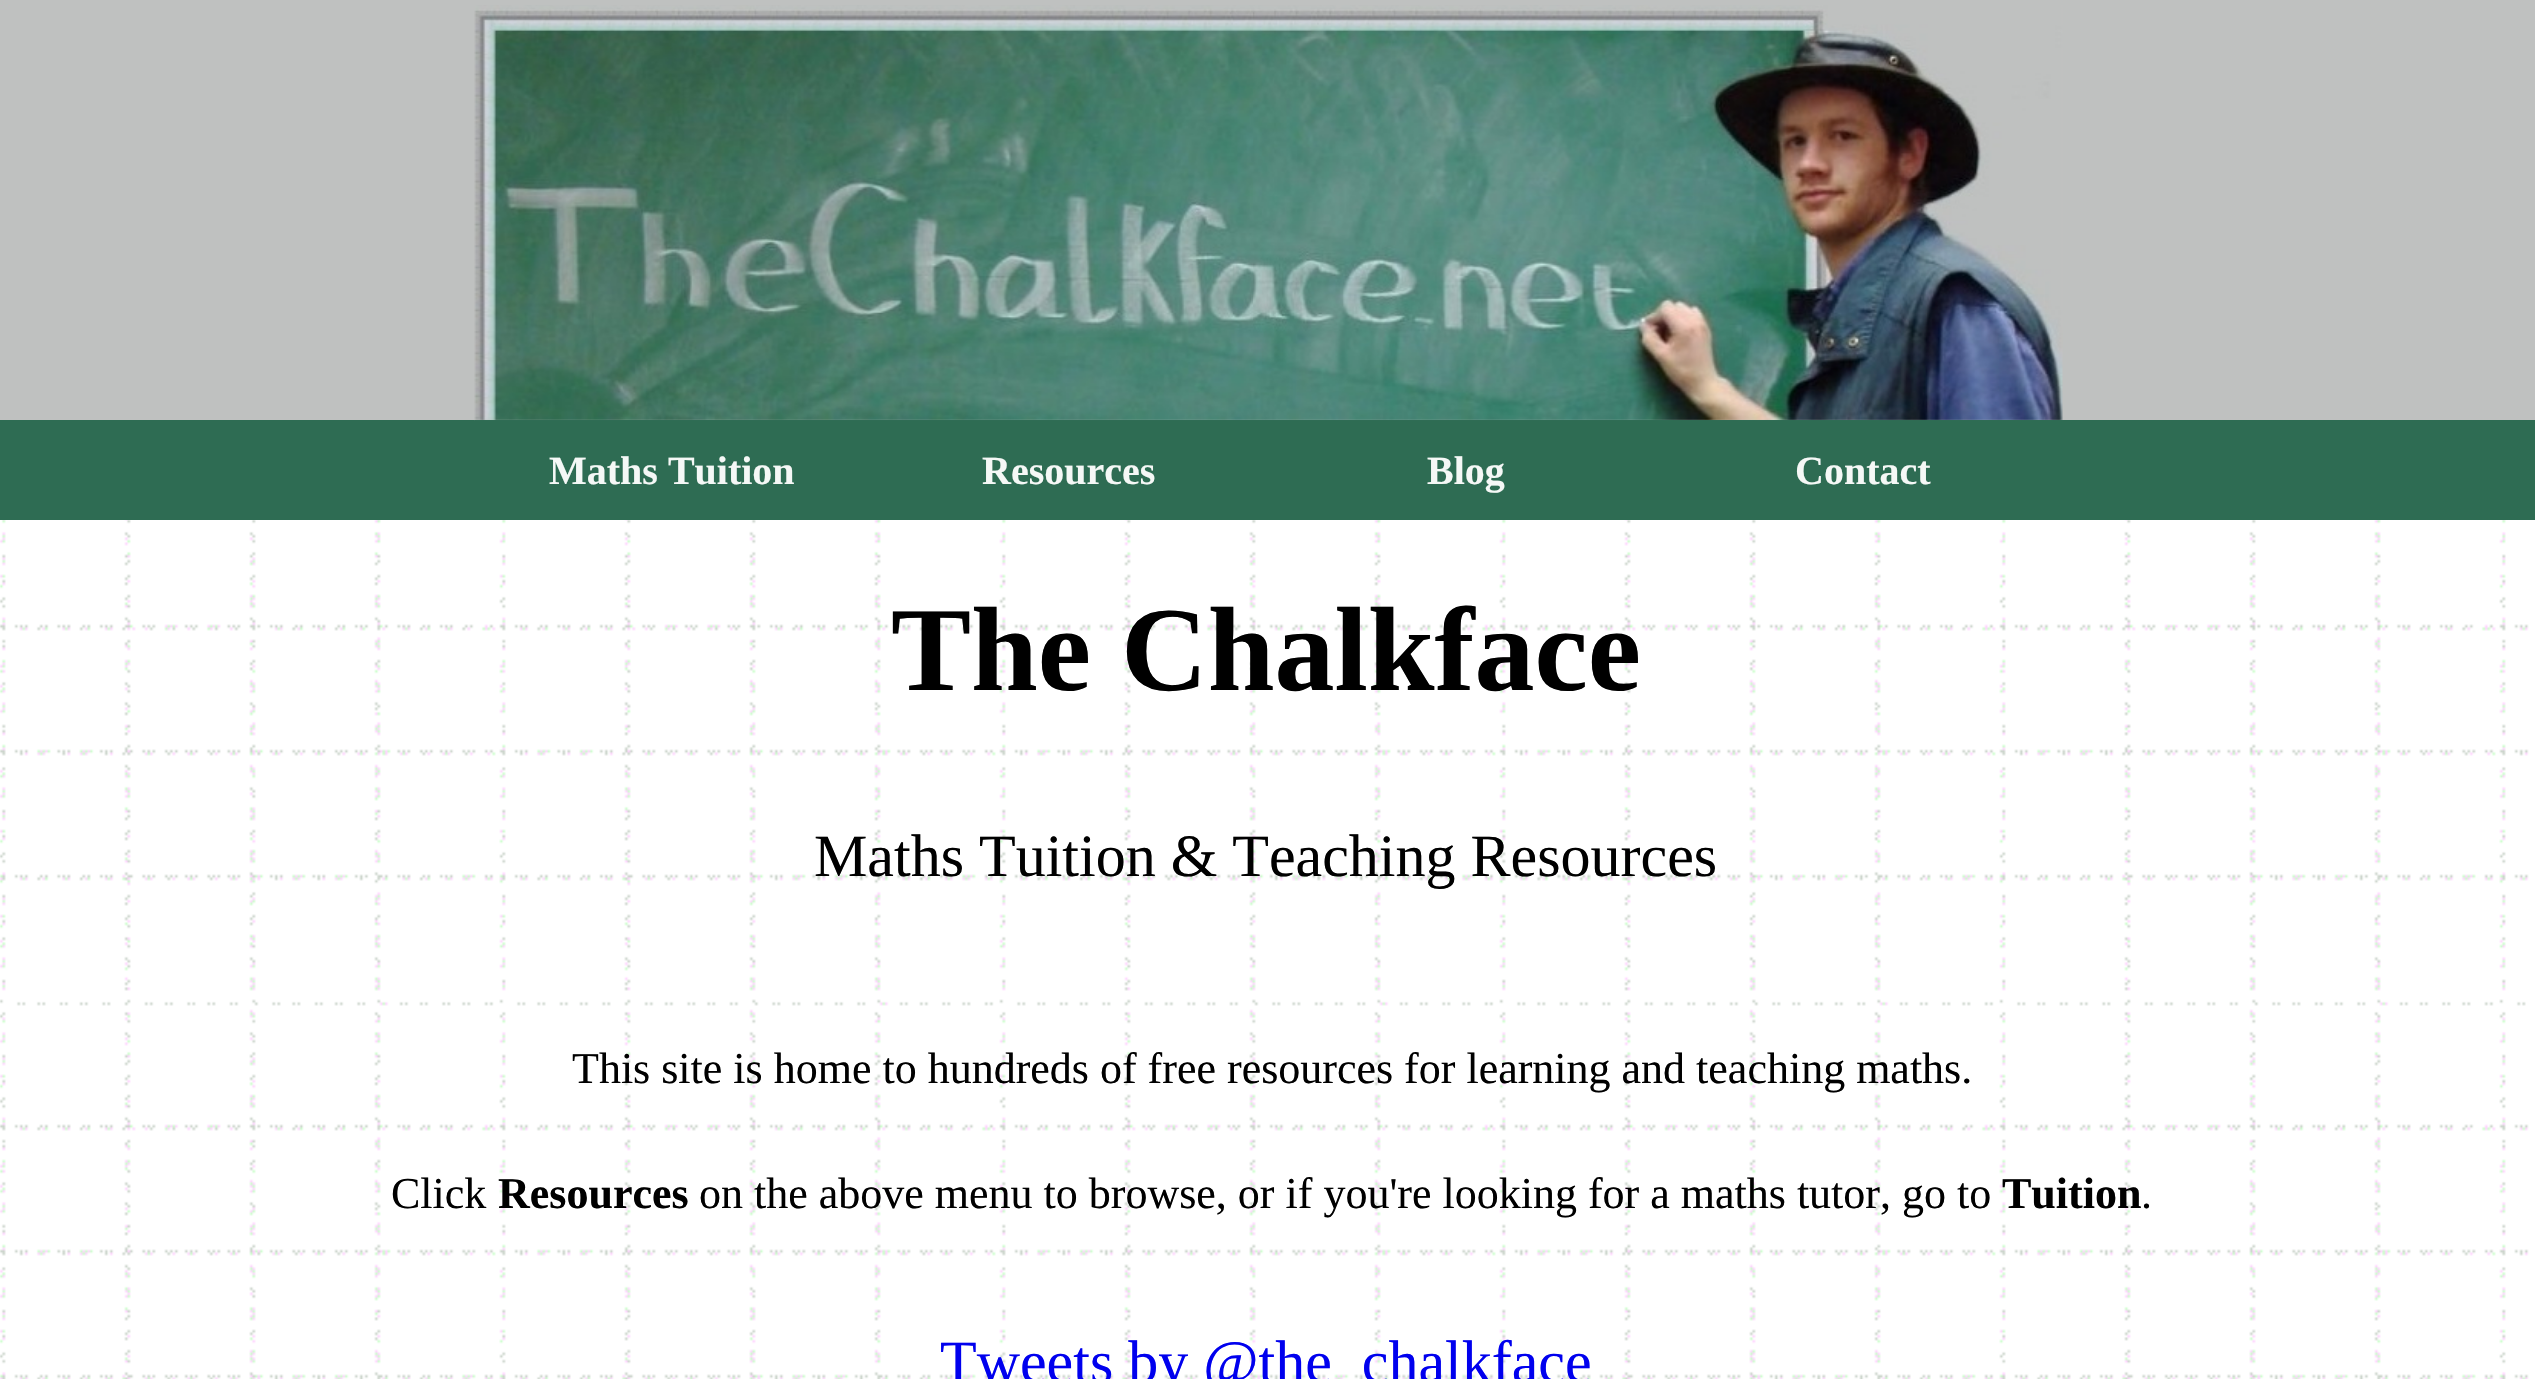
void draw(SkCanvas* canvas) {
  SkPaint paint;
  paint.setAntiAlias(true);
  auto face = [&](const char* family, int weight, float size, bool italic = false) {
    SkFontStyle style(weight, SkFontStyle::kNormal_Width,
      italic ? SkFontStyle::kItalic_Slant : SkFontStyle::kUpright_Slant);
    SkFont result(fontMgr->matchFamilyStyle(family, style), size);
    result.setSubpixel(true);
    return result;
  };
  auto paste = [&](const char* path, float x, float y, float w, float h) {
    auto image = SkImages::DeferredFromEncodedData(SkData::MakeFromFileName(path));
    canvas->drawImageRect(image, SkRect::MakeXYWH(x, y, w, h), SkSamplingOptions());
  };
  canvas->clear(0xffffffff);
  paste("img/1.png", 0, 520, 2529, 859);
  paint.setColor(0xffbfc1c0);
  canvas->drawRect(SkRect::MakeXYWH(0, 0, 2535, 420), paint);
  paint.setColor(0xff2e6c53);
  canvas->drawRect(SkRect::MakeXYWH(0, 420, 2535, 100), paint);
  paste("img/2.png", 474, 5, 1589, 416);
  {
    const struct { float x, y, w, h; SkColor color; } items[] = {
      {475, 420, 395, 1, 0xf22e6c53},
      {870, 420, 398, 1, 0xf22e6c53},
      {1268, 420, 397, 1, 0xf22e6c53},
      {1665, 420, 398, 1, 0xf22e6c53},
    };
    for (auto [x, y, w, h, color] : items) {
      paint.setColor(color);
      canvas->drawRect(SkRect::MakeXYWH(x, y, w, h), paint);
    }
  }
  auto f0 = face("Liberation Serif", 700, 40);
  paint.setColor(0xfff5f8f6);
  {
    const struct { const char* s; float x, y; } items[] = {
      {"Maths Tuition", 549, 484},
      {"Resources", 982, 484},
      {"Blog", 1427, 484},
      {"Contact", 1795, 484},
    };
    for (auto [s, x, y] : items) {
      canvas->drawString(s, x, y, f0, paint);
    }
  }
  auto f1 = face("Liberation Serif", 700, 120);
  paint.setColor(0xff000000);
  canvas->drawString("The Chalkface", 891, 690, f1, paint);
  auto f2 = face("Liberation Serif", 400, 60);
  canvas->drawString("Maths Tuition & Teaching Resources", 814, 876, f2, paint);
  auto f3 = face("Liberation Serif", 400, 44);
  canvas->drawString("This site is home to hundreds of free resources for learning and teaching maths.", 572, 1083, f3, paint);
  canvas->drawString("Click", 391, 1208, f3, paint);
  auto f4 = face("Liberation Serif", 700, 44);
  canvas->drawString("Resources", 498, 1208, f4, paint);
  canvas->drawString("on the above menu to browse, or if you're looking for a maths tutor, go to", 699, 1208, f3, paint);
  canvas->drawString("Tuition", 2002, 1208, f4, paint);
  canvas->drawString(".", 2141, 1208, f3, paint);
  paint.setColor(0xff0000ee);
  canvas->drawString("Tweets by @the_chalkface", 940, 1382, f2, paint);
}
